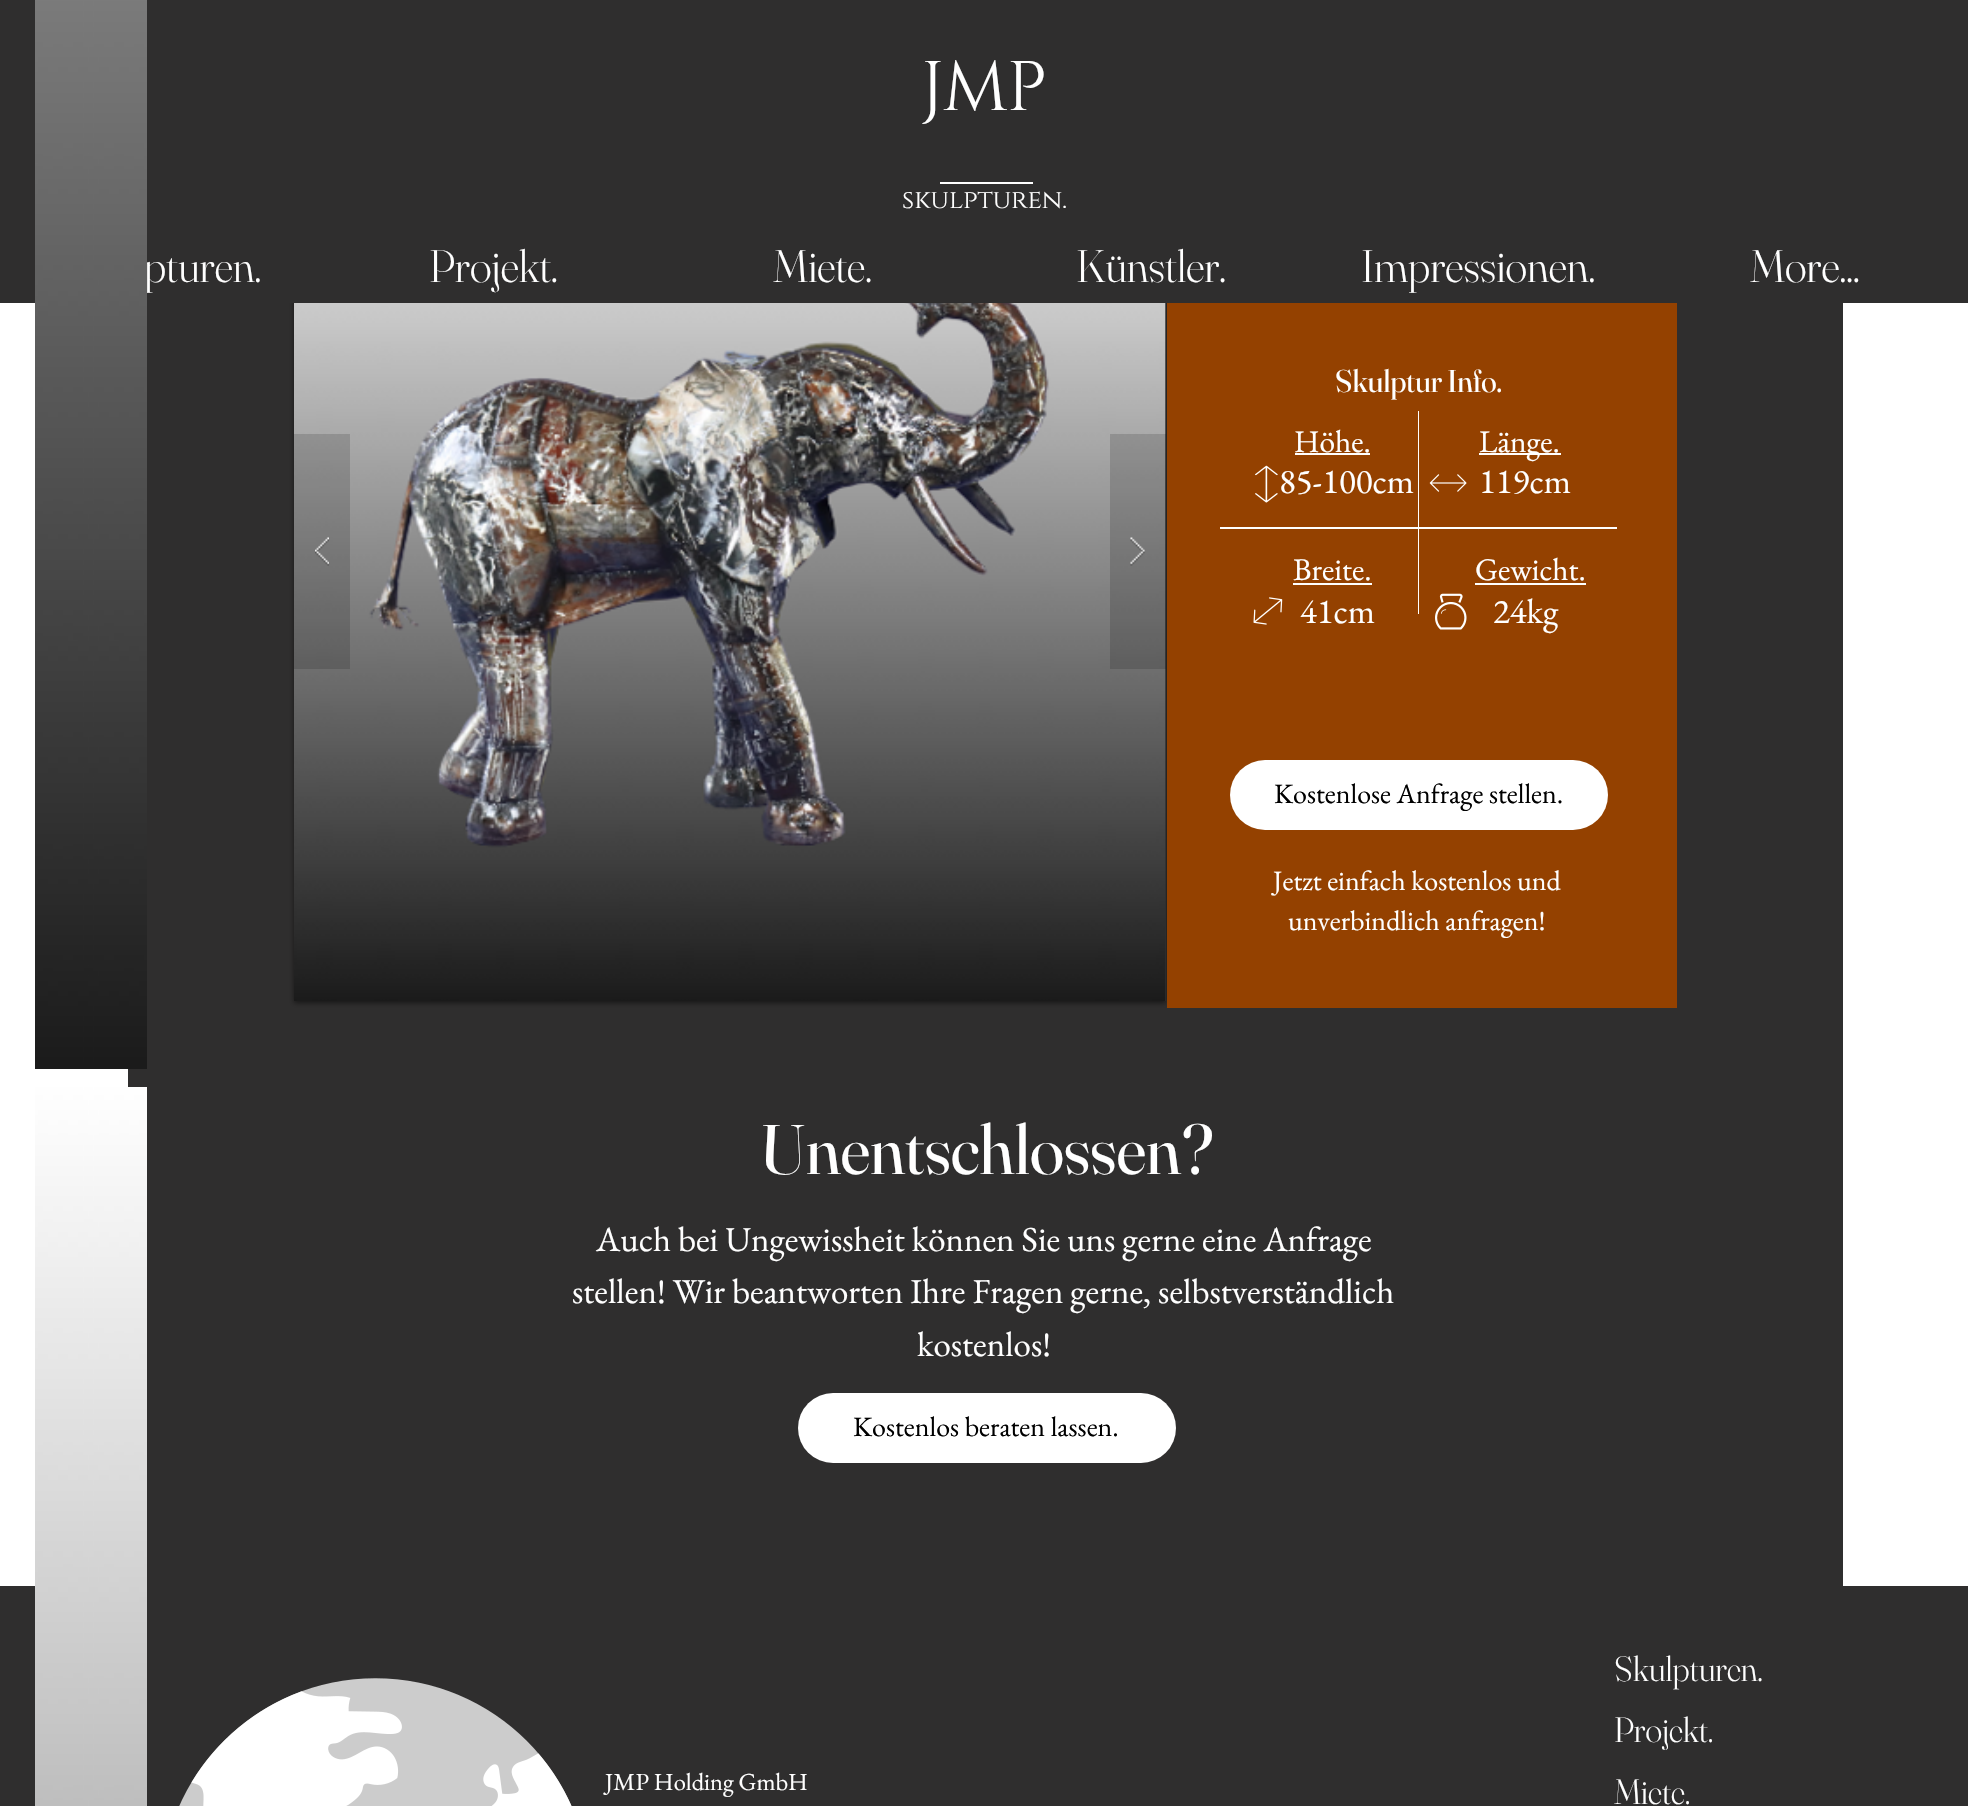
void draw(SkCanvas* canvas) {
  SkPaint paint;
  paint.setAntiAlias(true);
  auto face = [&](const char* family, int weight, float size, bool italic = false) {
    SkFontStyle style(weight, SkFontStyle::kNormal_Width,
      italic ? SkFontStyle::kItalic_Slant : SkFontStyle::kUpright_Slant);
    SkFont result(fontMgr->matchFamilyStyle(family, style), size);
    result.setSubpixel(true);
    return result;
  };
  auto writeSpaced = [&](const char* s, float x, float y, const SkFont& font, const SkPaint& ink, float letter, float word) {
    std::vector<SkGlyphID> glyphs(font.countText(s, strlen(s), SkTextEncoding::kUTF8));
    std::vector<float> xs(glyphs.size());
    font.textToGlyphs(s, strlen(s), SkTextEncoding::kUTF8, glyphs);
    font.getXPos(glyphs, xs, x);
    float extra = 0;
    for (size_t i = 0; i < glyphs.size(); i++) {
      xs[i] += extra;
      extra += letter + word * (glyphs[i] == font.unicharToGlyph(' '));
    }
    canvas->drawTextBlob(SkTextBlob::MakeFromPosHGlyphs(glyphs, xs, y, font), 0, 0, ink);
  };
  auto paste = [&](const char* path, float x, float y, float w, float h) {
    auto image = SkImages::DeferredFromEncodedData(SkData::MakeFromFileName(path));
    canvas->drawImageRect(image, SkRect::MakeXYWH(x, y, w, h), SkSamplingOptions());
  };
  canvas->clear(0xffffffff);
  paint.setColor(0xff2f2e2e);
  canvas->drawRect(SkRect::MakeXYWH(128, 303, 1715, 1283), paint);
  paint.setColor(0x80000000);
  paint.setMaskFilter(SkMaskFilter::MakeBlur(kNormal_SkBlurStyle, 2.5f));
  canvas->drawRect(SkRect::MakeXYWH(294, 102, 872, 901), paint);
  paint.setMaskFilter(nullptr);
  {
    const struct { float x, y, w, h; SkColor color; } items[] = {
      {0, 0, 1968, 303, 0xff2f2e2e},
      {940, 182, 93, 2, 0xffffffff},
      {0, 1586, 1968, 220, 0xff2f2e2e},
    };
    for (auto [x, y, w, h, color] : items) {
      paint.setColor(color);
      canvas->drawRect(SkRect::MakeXYWH(x, y, w, h), paint);
    }
  }
  paste("img/2.png", 35, 1087, 112, 719);
  canvas->drawRect(SkRect::MakeXYWH(1165, 303, 1, 698), paint);
  paste("img/3.png", 294, 303, 872, 698);
  paint.setColor(0x26000000);
  canvas->drawRect(SkRect::MakeXYWH(294, 434, 56, 235), paint);
  paste("img/4.png", 315, 537, 14, 29);
  canvas->drawRect(SkRect::MakeXYWH(1110, 434, 56, 235), paint);
  paste("img/5.png", 1130, 537, 15, 29);
  {
    const struct { float x, y, w, h; SkColor color; } items[] = {
      {1167, 303, 510, 705, 0xff944100},
      {1295, 453, 75, 2, 0xffffffff},
      {1418, 411, 1, 203, 0xffffffff},
      {1479, 453, 82, 2, 0xffffffff},
    };
    for (auto [x, y, w, h, color] : items) {
      paint.setColor(color);
      canvas->drawRect(SkRect::MakeXYWH(x, y, w, h), paint);
    }
  }
  paste("img/6.png", 1255, 465, 23, 38);
  paste("img/7.png", 1429, 474, 38, 18);
  {
    const struct { float x, y, w, h; SkColor color; } items[] = {
      {1220, 527, 397, 2, 0xffffffff},
      {1293, 583, 79, 2, 0xffffffff},
      {1475, 583, 111, 2, 0xffffffff},
    };
    for (auto [x, y, w, h, color] : items) {
      paint.setColor(color);
      canvas->drawRect(SkRect::MakeXYWH(x, y, w, h), paint);
    }
  }
  paste("img/8.png", 1253, 597, 30, 28);
  paste("img/9.png", 1435, 593, 32, 37);
  canvas->drawRoundRect(SkRect::MakeXYWH(1230, 760, 378, 70), 35, 35, paint);
  canvas->drawRoundRect(SkRect::MakeXYWH(798, 1393, 378, 70), 35, 35, paint);
  paste("img/10.png", 179, 1678, 393, 128);
  auto f0 = face("Cinzel", 400, 70);
  writeSpaced("JMP", 921, 110, f0, paint, -1, 0);
  auto f1 = face("Cinzel", 400, 26.25f);
  canvas->drawString("skulpturen.", 902, 208, f1, paint);
  auto f2 = face("Fraunces", 300, 45.5f);
  {
    const struct { const char* s; float x, y; } items[] = {
      {"pturen.", 144, 282},
      {"Projekt.", 429, 282},
      {"Miete.", 773, 282},
      {"Künstler.", 1076, 282},
      {"Impressionen.", 1361, 282},
      {"More...", 1750, 282},
    };
    for (auto [s, x, y] : items) {
      canvas->drawString(s, x, y, f2, paint);
    }
  }
  paste("img/1.png", 35, 0, 112, 1069);
  auto f3 = face("Fraunces", 400, 31.5f);
  canvas->drawString("Skulptur Info.", 1335, 392, f3, paint);
  auto f4 = face("EB Garamond", 400, 31.5f);
  canvas->drawString("Höhe.", 1294, 452, f4, paint);
  canvas->drawString("Länge.", 1479, 452, f4, paint);
  auto f5 = face("EB Garamond", 400, 35);
  canvas->drawString("85-100cm", 1279, 493, f5, paint);
  canvas->drawString("119cm", 1479, 493, f5, paint);
  canvas->drawString("Breite.", 1293, 580, f4, paint);
  canvas->drawString("Gewicht.", 1475, 580, f4, paint);
  canvas->drawString("41cm", 1300, 623, f5, paint);
  canvas->drawString("24kg", 1493, 623, f5, paint);
  auto f6 = face("EB Garamond", 400, 28);
  paint.setColor(0xff000000);
  canvas->drawString("Kostenlose Anfrage stellen.", 1274, 803, f6, paint);
  paint.setColor(0xffffffff);
  canvas->drawString("Jetzt einfach kostenlos und", 1273, 890, f6, paint);
  canvas->drawString("unverbindlich anfragen!", 1288, 930, f6, paint);
  auto f7 = face("Fraunces", 400, 70);
  canvas->drawString("Unentschlossen?", 760, 1174, f7, paint);
  {
    const struct { const char* s; float x, y; } items[] = {
      {"Auch bei Ungewissheit können Sie uns gerne eine Anfrage", 596, 1251},
      {"stellen! Wir beantworten Ihre Fragen gerne, selbstverständlich", 572, 1303},
      {"kostenlos!", 917, 1356},
    };
    for (auto [s, x, y] : items) {
      canvas->drawString(s, x, y, f5, paint);
    }
  }
  paint.setColor(0xff000000);
  canvas->drawString("Kostenlos beraten lassen.", 853, 1436, f6, paint);
  auto f8 = face("EB Garamond", 400, 24.5f);
  paint.setColor(0xffffffff);
  canvas->drawString("JMP Holding GmbH", 605, 1790, f8, paint);
  auto f9 = face("Fraunces", 300, 35);
  {
    const struct { const char* s; float x, y; } items[] = {
      {"Skulpturen.", 1614, 1681},
      {"Projekt.", 1614, 1742},
      {"Miete.", 1614, 1804},
    };
    for (auto [s, x, y] : items) {
      canvas->drawString(s, x, y, f9, paint);
    }
  }
}
